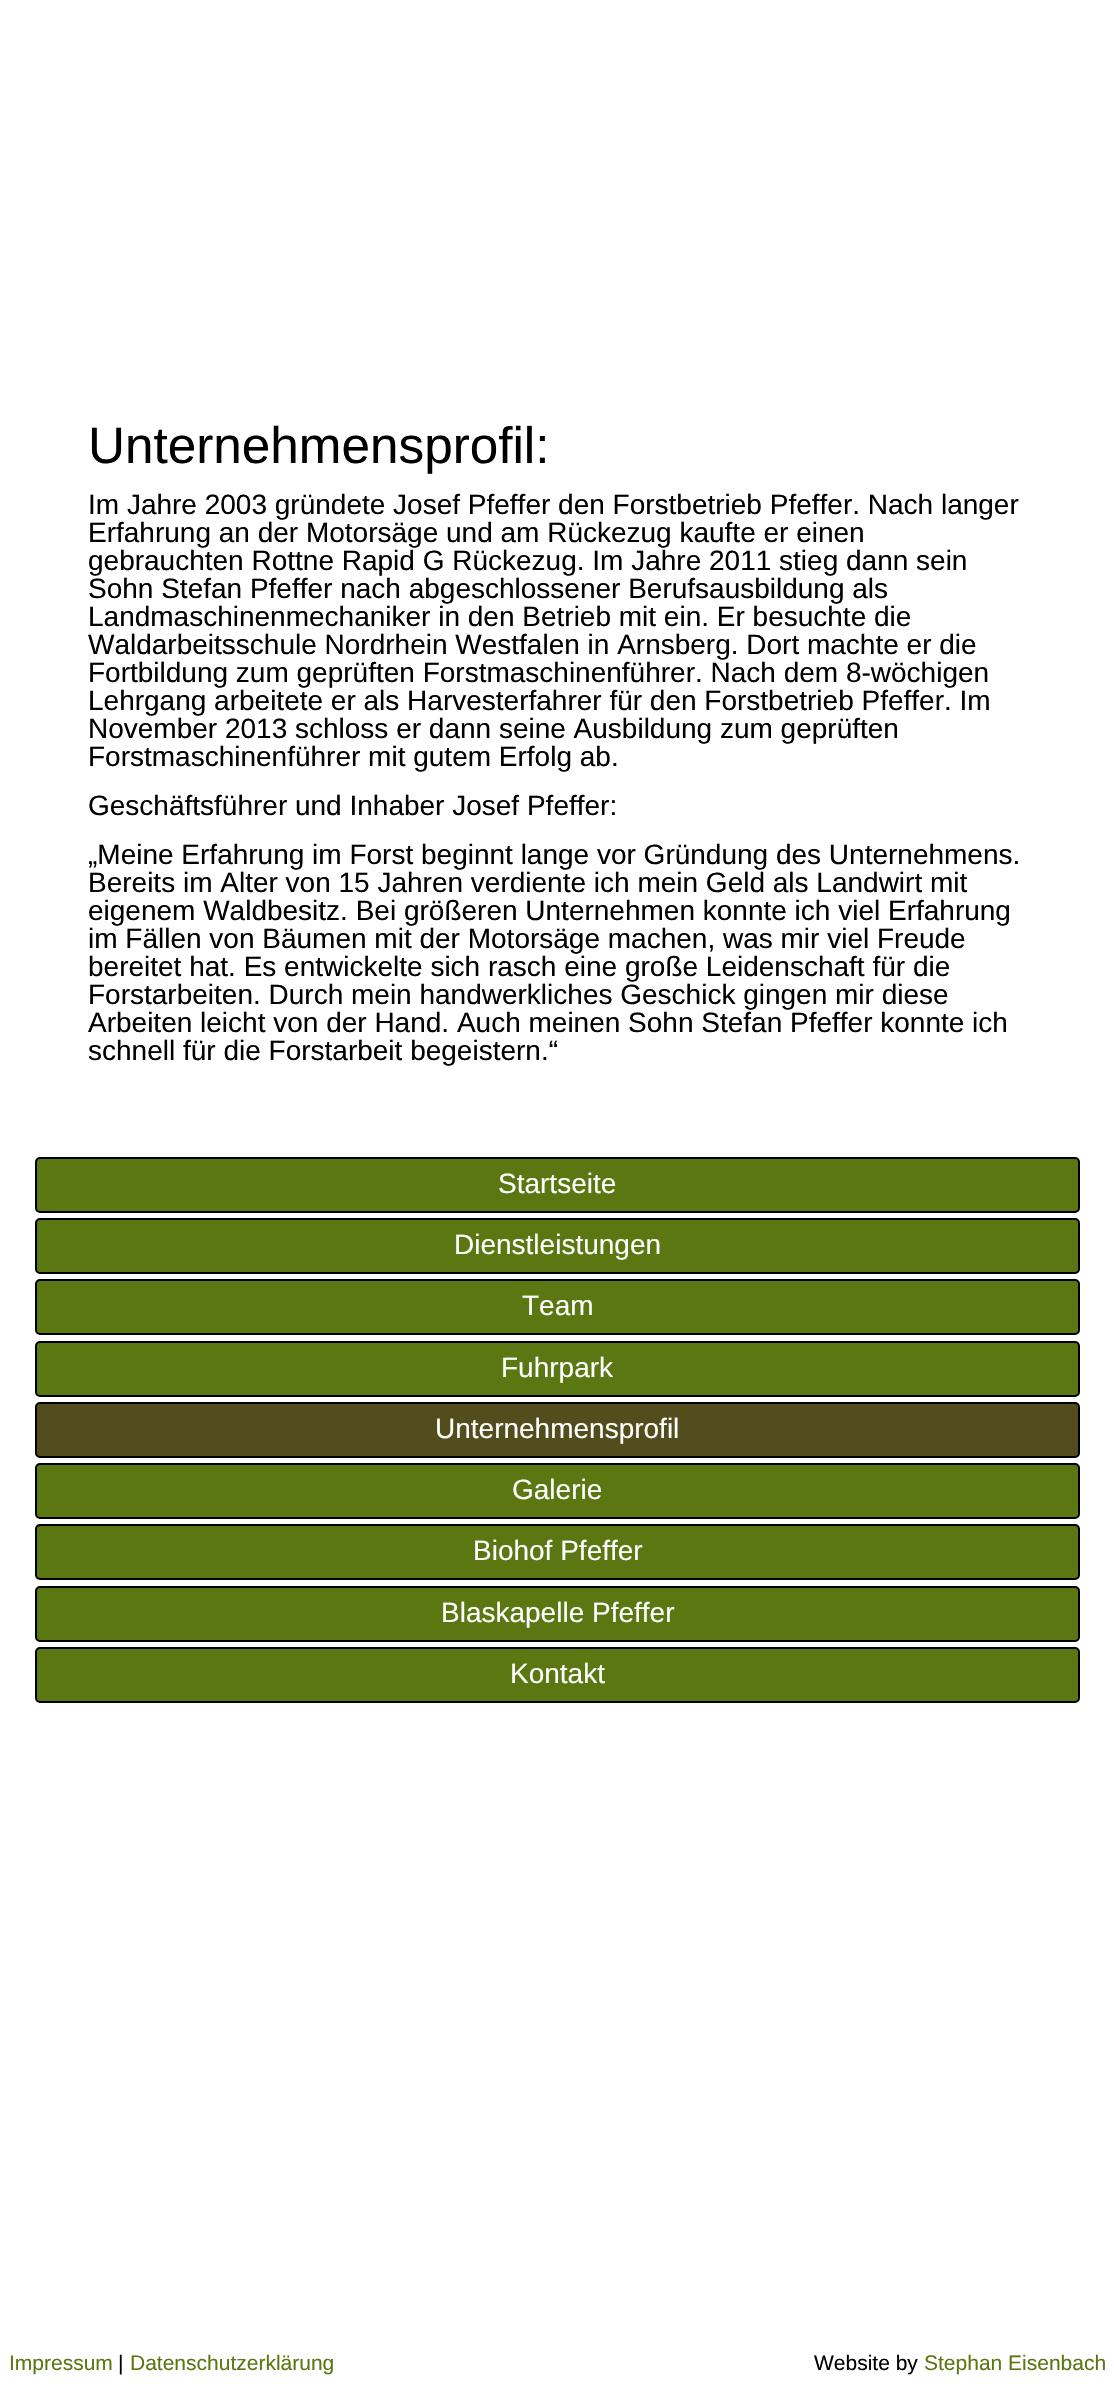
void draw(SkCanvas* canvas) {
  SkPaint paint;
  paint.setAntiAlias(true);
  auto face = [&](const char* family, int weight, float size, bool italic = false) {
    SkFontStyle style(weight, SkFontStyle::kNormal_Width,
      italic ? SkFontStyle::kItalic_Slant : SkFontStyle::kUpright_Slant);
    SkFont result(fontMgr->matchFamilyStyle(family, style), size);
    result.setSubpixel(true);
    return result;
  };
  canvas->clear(0xffffffff);
  paint.setColor(0xff5a7712);
  canvas->drawRoundRect(SkRect::MakeXYWH(36, 1158, 1043, 54), 4, 4, paint);
  paint.setStroke(true);
  paint.setStrokeWidth(2);
  paint.setColor(0xff000000);
  canvas->drawRoundRect(SkRect::MakeXYWH(36, 1158, 1043, 54), 4, 4, paint);
  paint.setStroke(false);
  paint.setColor(0xff5a7712);
  canvas->drawRoundRect(SkRect::MakeXYWH(36, 1219, 1043, 54), 4, 4, paint);
  paint.setStroke(true);
  paint.setColor(0xff000000);
  canvas->drawRoundRect(SkRect::MakeXYWH(36, 1219, 1043, 54), 4, 4, paint);
  paint.setStroke(false);
  paint.setColor(0xff5a7712);
  canvas->drawRoundRect(SkRect::MakeXYWH(36, 1280, 1043, 54), 4, 4, paint);
  paint.setStroke(true);
  paint.setColor(0xff000000);
  canvas->drawRoundRect(SkRect::MakeXYWH(36, 1280, 1043, 54), 4, 4, paint);
  paint.setStroke(false);
  paint.setColor(0xff5a7712);
  canvas->drawRoundRect(SkRect::MakeXYWH(36, 1342, 1043, 54), 4, 4, paint);
  paint.setStroke(true);
  paint.setColor(0xff000000);
  canvas->drawRoundRect(SkRect::MakeXYWH(36, 1342, 1043, 54), 4, 4, paint);
  paint.setStroke(false);
  paint.setColor(0xff534d1d);
  canvas->drawRoundRect(SkRect::MakeXYWH(36, 1403, 1043, 54), 4, 4, paint);
  paint.setStroke(true);
  paint.setColor(0xff000000);
  canvas->drawRoundRect(SkRect::MakeXYWH(36, 1403, 1043, 54), 4, 4, paint);
  paint.setStroke(false);
  paint.setColor(0xff5a7712);
  canvas->drawRoundRect(SkRect::MakeXYWH(36, 1464, 1043, 54), 4, 4, paint);
  paint.setStroke(true);
  paint.setColor(0xff000000);
  canvas->drawRoundRect(SkRect::MakeXYWH(36, 1464, 1043, 54), 4, 4, paint);
  paint.setStroke(false);
  paint.setColor(0xff5a7712);
  canvas->drawRoundRect(SkRect::MakeXYWH(36, 1525, 1043, 54), 4, 4, paint);
  paint.setStroke(true);
  paint.setColor(0xff000000);
  canvas->drawRoundRect(SkRect::MakeXYWH(36, 1525, 1043, 54), 4, 4, paint);
  paint.setStroke(false);
  paint.setColor(0xff5a7712);
  canvas->drawRoundRect(SkRect::MakeXYWH(36, 1587, 1043, 54), 4, 4, paint);
  paint.setStroke(true);
  paint.setColor(0xff000000);
  canvas->drawRoundRect(SkRect::MakeXYWH(36, 1587, 1043, 54), 4, 4, paint);
  paint.setStroke(false);
  paint.setColor(0xff5a7712);
  canvas->drawRoundRect(SkRect::MakeXYWH(36, 1648, 1043, 54), 4, 4, paint);
  paint.setStroke(true);
  paint.setColor(0xff000000);
  canvas->drawRoundRect(SkRect::MakeXYWH(36, 1648, 1043, 54), 4, 4, paint);
  auto f0 = face("Liberation Sans", 400, 51.25f);
  paint.setStroke(false);
  canvas->drawString("Unternehmensprofil:", 88, 463, f0, paint);
  auto f1 = face("Liberation Sans", 400, 28);
  {
    const struct { const char* s; float x, y; } items[] = {
      {"Im Jahre 2003 gründete Josef Pfeffer den Forstbetrieb Pfeffer. Nach langer", 88, 514},
      {"Erfahrung an der Motorsäge und am Rückezug kaufte er einen", 88, 542},
      {"gebrauchten Rottne Rapid G Rückezug. Im Jahre 2011 stieg dann sein", 88, 570},
      {"Sohn Stefan Pfeffer nach abgeschlossener Berufsausbildung als", 88, 598},
      {"Landmaschinenmechaniker in den Betrieb mit ein. Er besuchte die", 88, 626},
      {"Waldarbeitsschule Nordrhein Westfalen in Arnsberg. Dort machte er die", 88, 654},
      {"Fortbildung zum geprüften Forstmaschinenführer. Nach dem 8-wöchigen", 88, 682},
      {"Lehrgang arbeitete er als Harvesterfahrer für den Forstbetrieb Pfeffer. Im", 88, 710},
      {"November 2013 schloss er dann seine Ausbildung zum geprüften", 88, 738},
      {"Forstmaschinenführer mit gutem Erfolg ab.", 88, 766},
      {"Geschäftsführer und Inhaber Josef Pfeffer:", 88, 815},
      {"„Meine Erfahrung im Forst beginnt lange vor Gründung des Unternehmens.", 88, 864},
      {"Bereits im Alter von 15 Jahren verdiente ich mein Geld als Landwirt mit", 88, 892},
      {"eigenem Waldbesitz. Bei größeren Unternehmen konnte ich viel Erfahrung", 88, 920},
      {"im Fällen von Bäumen mit der Motorsäge machen, was mir viel Freude", 88, 948},
      {"bereitet hat. Es entwickelte sich rasch eine große Leidenschaft für die", 88, 976},
      {"Forstarbeiten. Durch mein handwerkliches Geschick gingen mir diese", 88, 1004},
      {"Arbeiten leicht von der Hand. Auch meinen Sohn Stefan Pfeffer konnte ich", 88, 1032},
      {"schnell für die Forstarbeit begeistern.“", 88, 1060},
    };
    for (auto [s, x, y] : items) {
      canvas->drawString(s, x, y, f1, paint);
    }
  }
  paint.setColor(0xffffffff);
  {
    const struct { const char* s; float x, y; } items[] = {
      {"Startseite", 498, 1193},
      {"Dienstleistungen", 454, 1254},
      {"Team", 522, 1315},
      {"Fuhrpark", 501, 1377},
      {"Unternehmensprofil", 435, 1438},
      {"Galerie", 512, 1499},
      {"Biohof Pfeffer", 473, 1560},
      {"Blaskapelle Pfeffer", 441, 1622},
      {"Kontakt", 510, 1683},
    };
    for (auto [s, x, y] : items) {
      canvas->drawString(s, x, y, f1, paint);
    }
  }
  auto f2 = face("Liberation Sans", 400, 21);
  paint.setColor(0xff5a7712);
  canvas->drawString("Impressum", 9, 2370, f2, paint);
  paint.setColor(0xff000000);
  canvas->drawString("|", 118, 2370, f2, paint);
  paint.setColor(0xff5a7712);
  canvas->drawString("Datenschutzerklärung", 130, 2370, f2, paint);
  paint.setColor(0xff000000);
  canvas->drawString("Website by", 814, 2370, f2, paint);
  paint.setColor(0xff5a7712);
  canvas->drawString("Stephan Eisenbach", 924, 2370, f2, paint);
}
